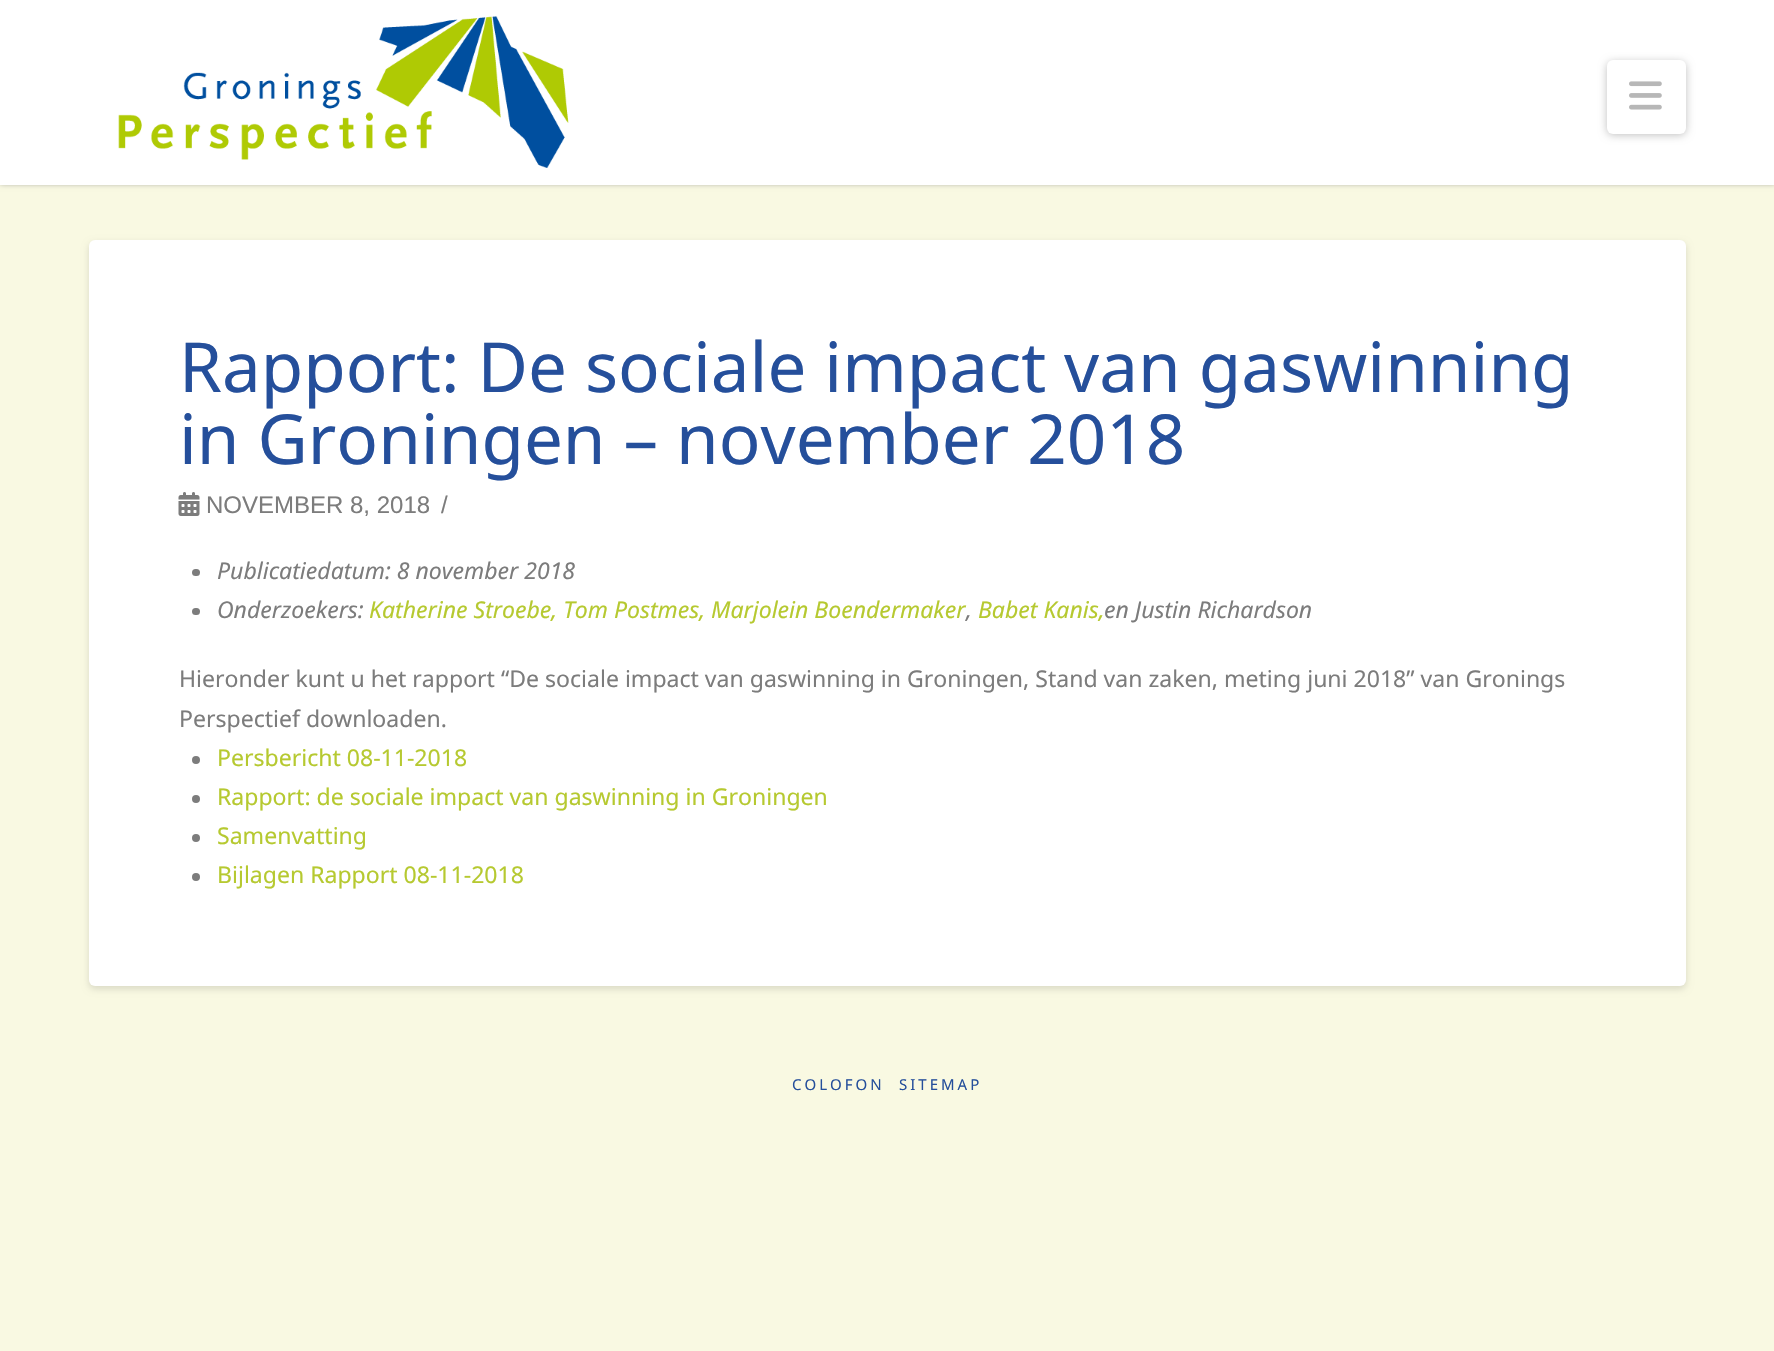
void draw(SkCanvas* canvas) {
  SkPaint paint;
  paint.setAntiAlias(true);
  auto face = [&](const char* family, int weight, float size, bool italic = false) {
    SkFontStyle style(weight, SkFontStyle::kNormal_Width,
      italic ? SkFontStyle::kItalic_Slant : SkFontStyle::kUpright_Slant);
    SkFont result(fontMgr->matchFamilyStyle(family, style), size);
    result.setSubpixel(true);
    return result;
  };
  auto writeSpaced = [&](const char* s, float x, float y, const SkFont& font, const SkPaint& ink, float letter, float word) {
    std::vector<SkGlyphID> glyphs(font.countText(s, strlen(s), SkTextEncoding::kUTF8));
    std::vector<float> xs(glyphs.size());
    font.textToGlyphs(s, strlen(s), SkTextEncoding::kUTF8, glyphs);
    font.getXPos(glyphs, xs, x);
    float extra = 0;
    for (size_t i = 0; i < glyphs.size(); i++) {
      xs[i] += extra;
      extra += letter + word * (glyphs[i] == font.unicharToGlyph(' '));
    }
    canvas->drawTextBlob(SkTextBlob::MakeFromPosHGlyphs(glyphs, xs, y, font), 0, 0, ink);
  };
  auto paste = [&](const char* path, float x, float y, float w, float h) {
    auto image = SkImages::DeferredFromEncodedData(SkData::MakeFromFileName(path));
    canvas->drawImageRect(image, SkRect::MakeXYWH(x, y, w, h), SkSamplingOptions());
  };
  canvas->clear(0xfff9f9e2);
  paint.setColor(0xff808080);
  paint.setMaskFilter(SkMaskFilter::MakeBlur(kNormal_SkBlurStyle, 3));
  canvas->drawRect(SkRect::MakeXYWH(0, 3, 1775, 180), paint);
  paint.setMaskFilter(nullptr);
  paint.setStroke(true);
  paint.setStrokeWidth(5);
  paint.setColor(0xffffffff);
  canvas->drawRect(SkRect::MakeXYWH(-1.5f, -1.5f, 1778, 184), paint);
  paint.setStroke(false);
  canvas->drawRect(SkRect::MakeXYWH(1, 1, 1773, 179), paint);
  paste("img/1.png", 118, 16, 451, 152);
  paint.setColor(0x40000000);
  paint.setMaskFilter(SkMaskFilter::MakeBlur(kNormal_SkBlurStyle, 4));
  canvas->drawRoundRect(SkRect::MakeXYWH(1607, 62, 79, 73), 6, 6, paint);
  paint.setMaskFilter(nullptr);
  paint.setColor(0xffffffff);
  canvas->drawRoundRect(SkRect::MakeXYWH(1607, 60, 79, 74), 6, 6, paint);
  paste("img/2.png", 1629, 81, 33, 29);
  paint.setColor(0x21000000);
  paint.setMaskFilter(SkMaskFilter::MakeBlur(kNormal_SkBlurStyle, 3.5f));
  canvas->drawRoundRect(SkRect::MakeXYWH(89, 243, 1597, 746), 6, 6, paint);
  paint.setMaskFilter(nullptr);
  paint.setColor(0xffffffff);
  canvas->drawRoundRect(SkRect::MakeXYWH(89, 240, 1597, 746), 6, 6, paint);
  paste("img/3.png", 178, 492, 22, 24);
  paint.setColor(0xff7c7c7c);
  canvas->drawRoundRect(SkRect::MakeXYWH(192, 569, 8, 7), 3.5f, 3.5f, paint);
  canvas->drawRoundRect(SkRect::MakeXYWH(192, 608, 8, 7), 3.5f, 3.5f, paint);
  canvas->drawCircle(196, 760, 4, paint);
  canvas->drawCircle(196, 799, 4, paint);
  canvas->drawCircle(196, 838, 4, paint);
  canvas->drawCircle(196, 877, 4, paint);
  auto f0 = face("Noto Sans", 400, 69.1f);
  paint.setColor(0xff254f9b);
  canvas->drawString("Rapport: De sociale impact van gaswinning", 179, 392, f0, paint);
  canvas->drawString("in Groningen – november 2018", 179, 464, f0, paint);
  auto f1 = face("Liberation Sans", 400, 24);
  paint.setColor(0xff7c7c7c);
  canvas->drawString("NOVEMBER 8, 2018", 206, 513, f1, paint);
  canvas->drawString("/", 441, 513, f1, paint);
  auto f2 = face("Noto Sans", 400, 23.05f, true);
  canvas->drawString("Publicatiedatum: 8 november 2018", 217, 579, f2, paint);
  canvas->drawString("Onderzoekers:", 217, 618, f2, paint);
  paint.setColor(0xffb6c930);
  canvas->drawString("Katherine Stroebe, Tom Postmes, Marjolein Boendermaker", 369, 618, f2, paint);
  canvas->drawString("Babet Kanis,", 978, 618, f2, paint);
  paint.setColor(0xff7c7c7c);
  canvas->drawString("en Justin Richardson", 1104, 618, f2, paint);
  canvas->drawString(",", 966, 618, f2, paint);
  auto f3 = face("Noto Sans", 400, 23.05f);
  canvas->drawString("Hieronder kunt u het rapport “De sociale impact van gaswinning in Groningen, Stand van zaken, meting juni 2018” van Gronings", 179, 687, f3, paint);
  canvas->drawString("Perspectief downloaden.", 179, 727, f3, paint);
  paint.setColor(0xffb6c930);
  {
    const struct { const char* s; float x, y; } items[] = {
      {"Persbericht 08-11-2018", 217, 766},
      {"Rapport: de sociale impact van gaswinning in Groningen", 217, 805},
      {"Samenvatting", 217, 844},
      {"Bijlagen Rapport 08-11-2018", 217, 883},
    };
    for (auto [s, x, y] : items) {
      canvas->drawString(s, x, y, f3, paint);
    }
  }
  auto f4 = face("Noto Sans", 400, 15);
  paint.setColor(0xff254f9b);
  writeSpaced("COLOFON", 792, 1090, f4, paint, 3, 0);
  writeSpaced("SITEMAP", 899, 1090, f4, paint, 3, 0);
}
